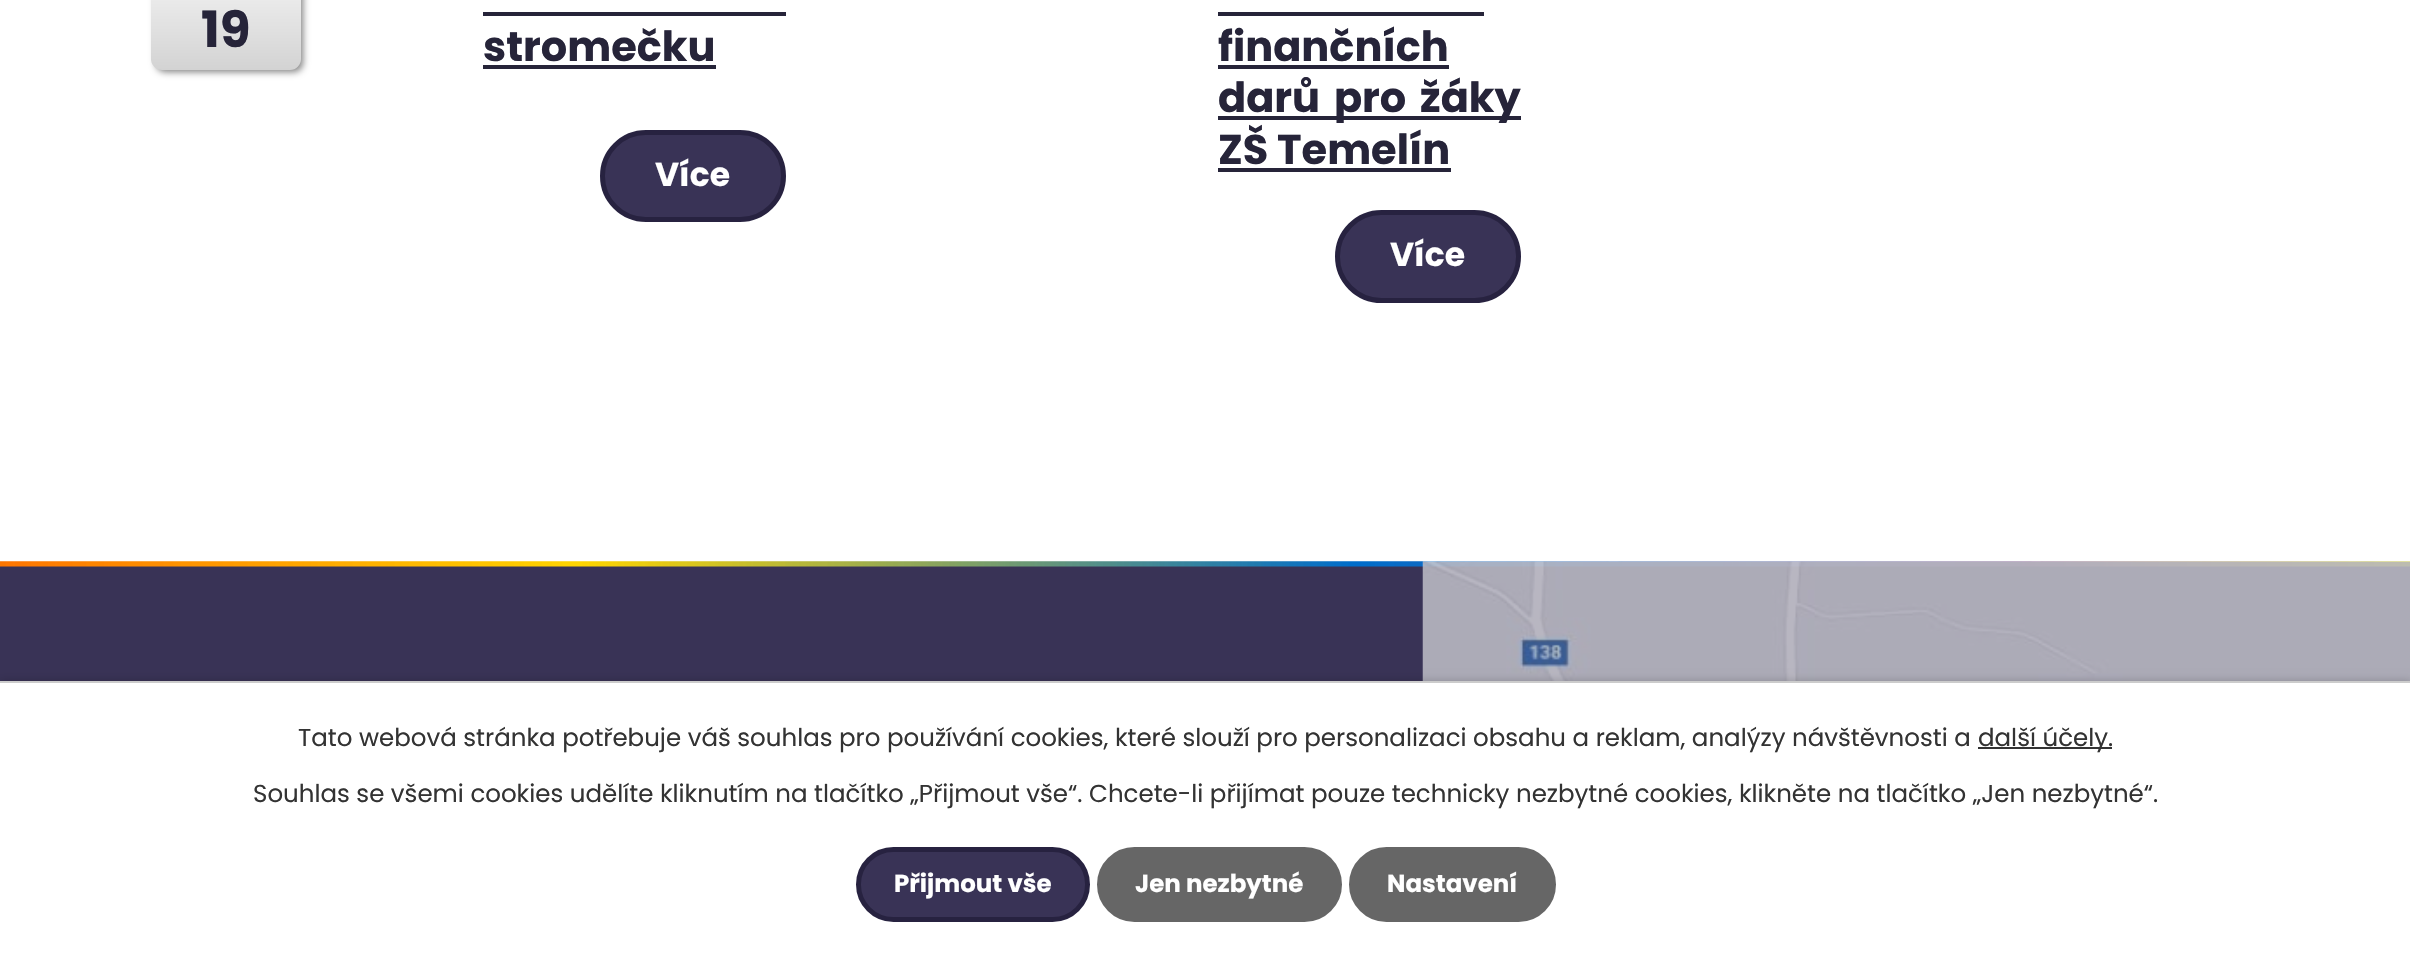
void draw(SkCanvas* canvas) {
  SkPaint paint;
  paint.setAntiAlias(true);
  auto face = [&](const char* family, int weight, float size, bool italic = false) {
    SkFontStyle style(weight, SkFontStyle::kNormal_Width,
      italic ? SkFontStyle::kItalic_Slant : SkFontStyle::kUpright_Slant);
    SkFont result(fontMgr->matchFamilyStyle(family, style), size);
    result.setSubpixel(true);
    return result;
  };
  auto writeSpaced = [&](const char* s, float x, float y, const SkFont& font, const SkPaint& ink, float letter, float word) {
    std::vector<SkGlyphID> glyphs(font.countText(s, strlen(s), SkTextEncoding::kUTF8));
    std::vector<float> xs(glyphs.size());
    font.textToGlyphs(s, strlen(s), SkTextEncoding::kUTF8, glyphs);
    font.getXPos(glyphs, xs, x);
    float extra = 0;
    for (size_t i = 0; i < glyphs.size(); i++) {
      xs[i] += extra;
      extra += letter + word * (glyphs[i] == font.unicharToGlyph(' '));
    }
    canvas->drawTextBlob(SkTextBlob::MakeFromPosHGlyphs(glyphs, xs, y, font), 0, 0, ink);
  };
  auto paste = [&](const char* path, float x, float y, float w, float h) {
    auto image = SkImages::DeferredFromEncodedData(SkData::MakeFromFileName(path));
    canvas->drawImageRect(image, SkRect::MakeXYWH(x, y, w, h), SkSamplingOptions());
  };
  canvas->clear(0xffffffff);
  paint.setColor(0xff808080);
  paint.setMaskFilter(SkMaskFilter::MakeBlur(kNormal_SkBlurStyle, 3.5f));
  canvas->drawRoundRect(SkRect::MakeXYWH(156, -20, 147, 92), 9, 9, paint);
  paint.setMaskFilter(nullptr);
  {
    const SkColor colors[] = {0xffffffff, 0xffd3d3d3};
    const float stops[] = {0, 1};
    const SkPoint ends[] = {{151, -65}, {151, 70}};
    paint.setShader(SkGradientShader::MakeLinear(ends, colors, stops, 2, SkTileMode::kClamp));
    paint.setAlpha(255);
  }
  canvas->drawRoundRect(SkRect::MakeXYWH(151, -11, 150, 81), 11, 11, paint);
  paint.setShader(nullptr);
  paint.setColor(0xff262439);
  canvas->drawRect(SkRect::MakeXYWH(483, 12, 303, 4), paint);
  canvas->drawRect(SkRect::MakeXYWH(483, 65, 233, 4), paint);
  paint.setColor(0xff393356);
  canvas->drawRoundRect(SkRect::MakeXYWH(602.5f, 132.5f, 181, 87), 43.5f, 43.5f, paint);
  paint.setStroke(true);
  paint.setStrokeWidth(5);
  paint.setColor(0xff272240);
  canvas->drawRoundRect(SkRect::MakeXYWH(602.5f, 132.5f, 181, 87), 43.5f, 43.5f, paint);
  paint.setStroke(false);
  {
    const struct { float x, y, w, h; SkColor color; } items[] = {
      {1218, 12, 266, 4, 0xff262439},
      {1218, 65, 231, 4, 0xff262439},
      {1218, 116, 303, 4, 0xff262439},
      {1218, 168, 233, 4, 0xff262439},
    };
    for (auto [x, y, w, h, color] : items) {
      paint.setColor(color);
      canvas->drawRect(SkRect::MakeXYWH(x, y, w, h), paint);
    }
  }
  paint.setColor(0xff393356);
  canvas->drawRoundRect(SkRect::MakeXYWH(1337.5f, 212.5f, 181, 88), 44, 44, paint);
  paint.setStroke(true);
  paint.setColor(0xff272240);
  canvas->drawRoundRect(SkRect::MakeXYWH(1337.5f, 212.5f, 181, 88), 44, 44, paint);
  paint.setStroke(false);
  paint.setColor(0xff393356);
  canvas->drawRect(SkRect::MakeXYWH(0, 566, 2410, 115), paint);
  paste("img/1.png", 0, 561, 2410, 6);
  paint.setColor(0xa8272240);
  canvas->drawRect(SkRect::MakeXYWH(1423, 562, 987, 119), paint);
  paste("img/2.png", 1422, 561, 988, 120);
  paint.setColor(0x33000000);
  paint.setMaskFilter(SkMaskFilter::MakeBlur(kNormal_SkBlurStyle, 4.5f));
  canvas->drawRect(SkRect::MakeXYWH(0, 681, 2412, 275), paint);
  paint.setMaskFilter(nullptr);
  {
    const struct { float x, y, w, h; SkColor color; } items[] = {
      {0, 683, 2410, 271, 0xffffffff},
      {0, 681, 2410, 2, 0xffcccccc},
      {1978, 747, 134, 2, 0xff333333},
    };
    for (auto [x, y, w, h, color] : items) {
      paint.setColor(color);
      canvas->drawRect(SkRect::MakeXYWH(x, y, w, h), paint);
    }
  }
  paint.setColor(0xff393356);
  canvas->drawRoundRect(SkRect::MakeXYWH(858.5f, 849.5f, 229, 70), 35, 35, paint);
  paint.setStroke(true);
  paint.setColor(0xff272240);
  canvas->drawRoundRect(SkRect::MakeXYWH(858.5f, 849.5f, 229, 70), 35, 35, paint);
  paint.setStroke(false);
  paint.setColor(0xff666666);
  canvas->drawRoundRect(SkRect::MakeXYWH(1099.5f, 849.5f, 240, 70), 35, 35, paint);
  paint.setStroke(true);
  canvas->drawRoundRect(SkRect::MakeXYWH(1099.5f, 849.5f, 240, 70), 35, 35, paint);
  paint.setStroke(false);
  canvas->drawRoundRect(SkRect::MakeXYWH(1351.5f, 849.5f, 202, 70), 35, 35, paint);
  paint.setStroke(true);
  canvas->drawRoundRect(SkRect::MakeXYWH(1351.5f, 849.5f, 202, 70), 35, 35, paint);
  auto f0 = face("Poppins", 700, 50);
  paint.setStroke(false);
  paint.setColor(0xff262439);
  canvas->drawString("19", 201, 47, f0, paint);
  auto f1 = face("Poppins", 700, 41.5f);
  canvas->drawString("stromečku", 483, 61, f1, paint);
  auto f2 = face("Poppins", 700, 33);
  paint.setColor(0xffffffff);
  canvas->drawString("Více", 655, 186, f2, paint);
  paint.setColor(0xff262439);
  canvas->drawString("finančních", 1218, 61, f1, paint);
  writeSpaced("darů pro žáky", 1218, 112, f1, paint, 0, 5);
  canvas->drawString("ZŠ Temelín", 1218, 164, f1, paint);
  paint.setColor(0xffffffff);
  canvas->drawString("Více", 1390, 266, f2, paint);
  auto f3 = face("Poppins", 400, 24.5f);
  paint.setColor(0xff333333);
  {
    const struct { const char* s; float x, y; } items[] = {
      {"Tato webová stránka potřebuje váš souhlas pro používání cookies, které slouží pro personalizaci obsahu a reklam, analýzy návštěvnosti a", 298, 746},
      {"další účely.", 1978, 746},
      {"Souhlas se všemi cookies udělíte kliknutím na tlačítko „Přijmout vše“. Chcete-li přijímat pouze technicky nezbytné cookies, klikněte na tlačítko „Jen nezbytné“.", 253, 802},
    };
    for (auto [s, x, y] : items) {
      canvas->drawString(s, x, y, f3, paint);
    }
  }
  auto f4 = face("Poppins", 700, 24.5f);
  paint.setColor(0xffffffff);
  {
    const struct { const char* s; float x, y; } items[] = {
      {"Přijmout vše", 894, 892},
      {"Jen nezbytné", 1135, 892},
      {"Nastavení", 1387, 892},
    };
    for (auto [s, x, y] : items) {
      canvas->drawString(s, x, y, f4, paint);
    }
  }
}
